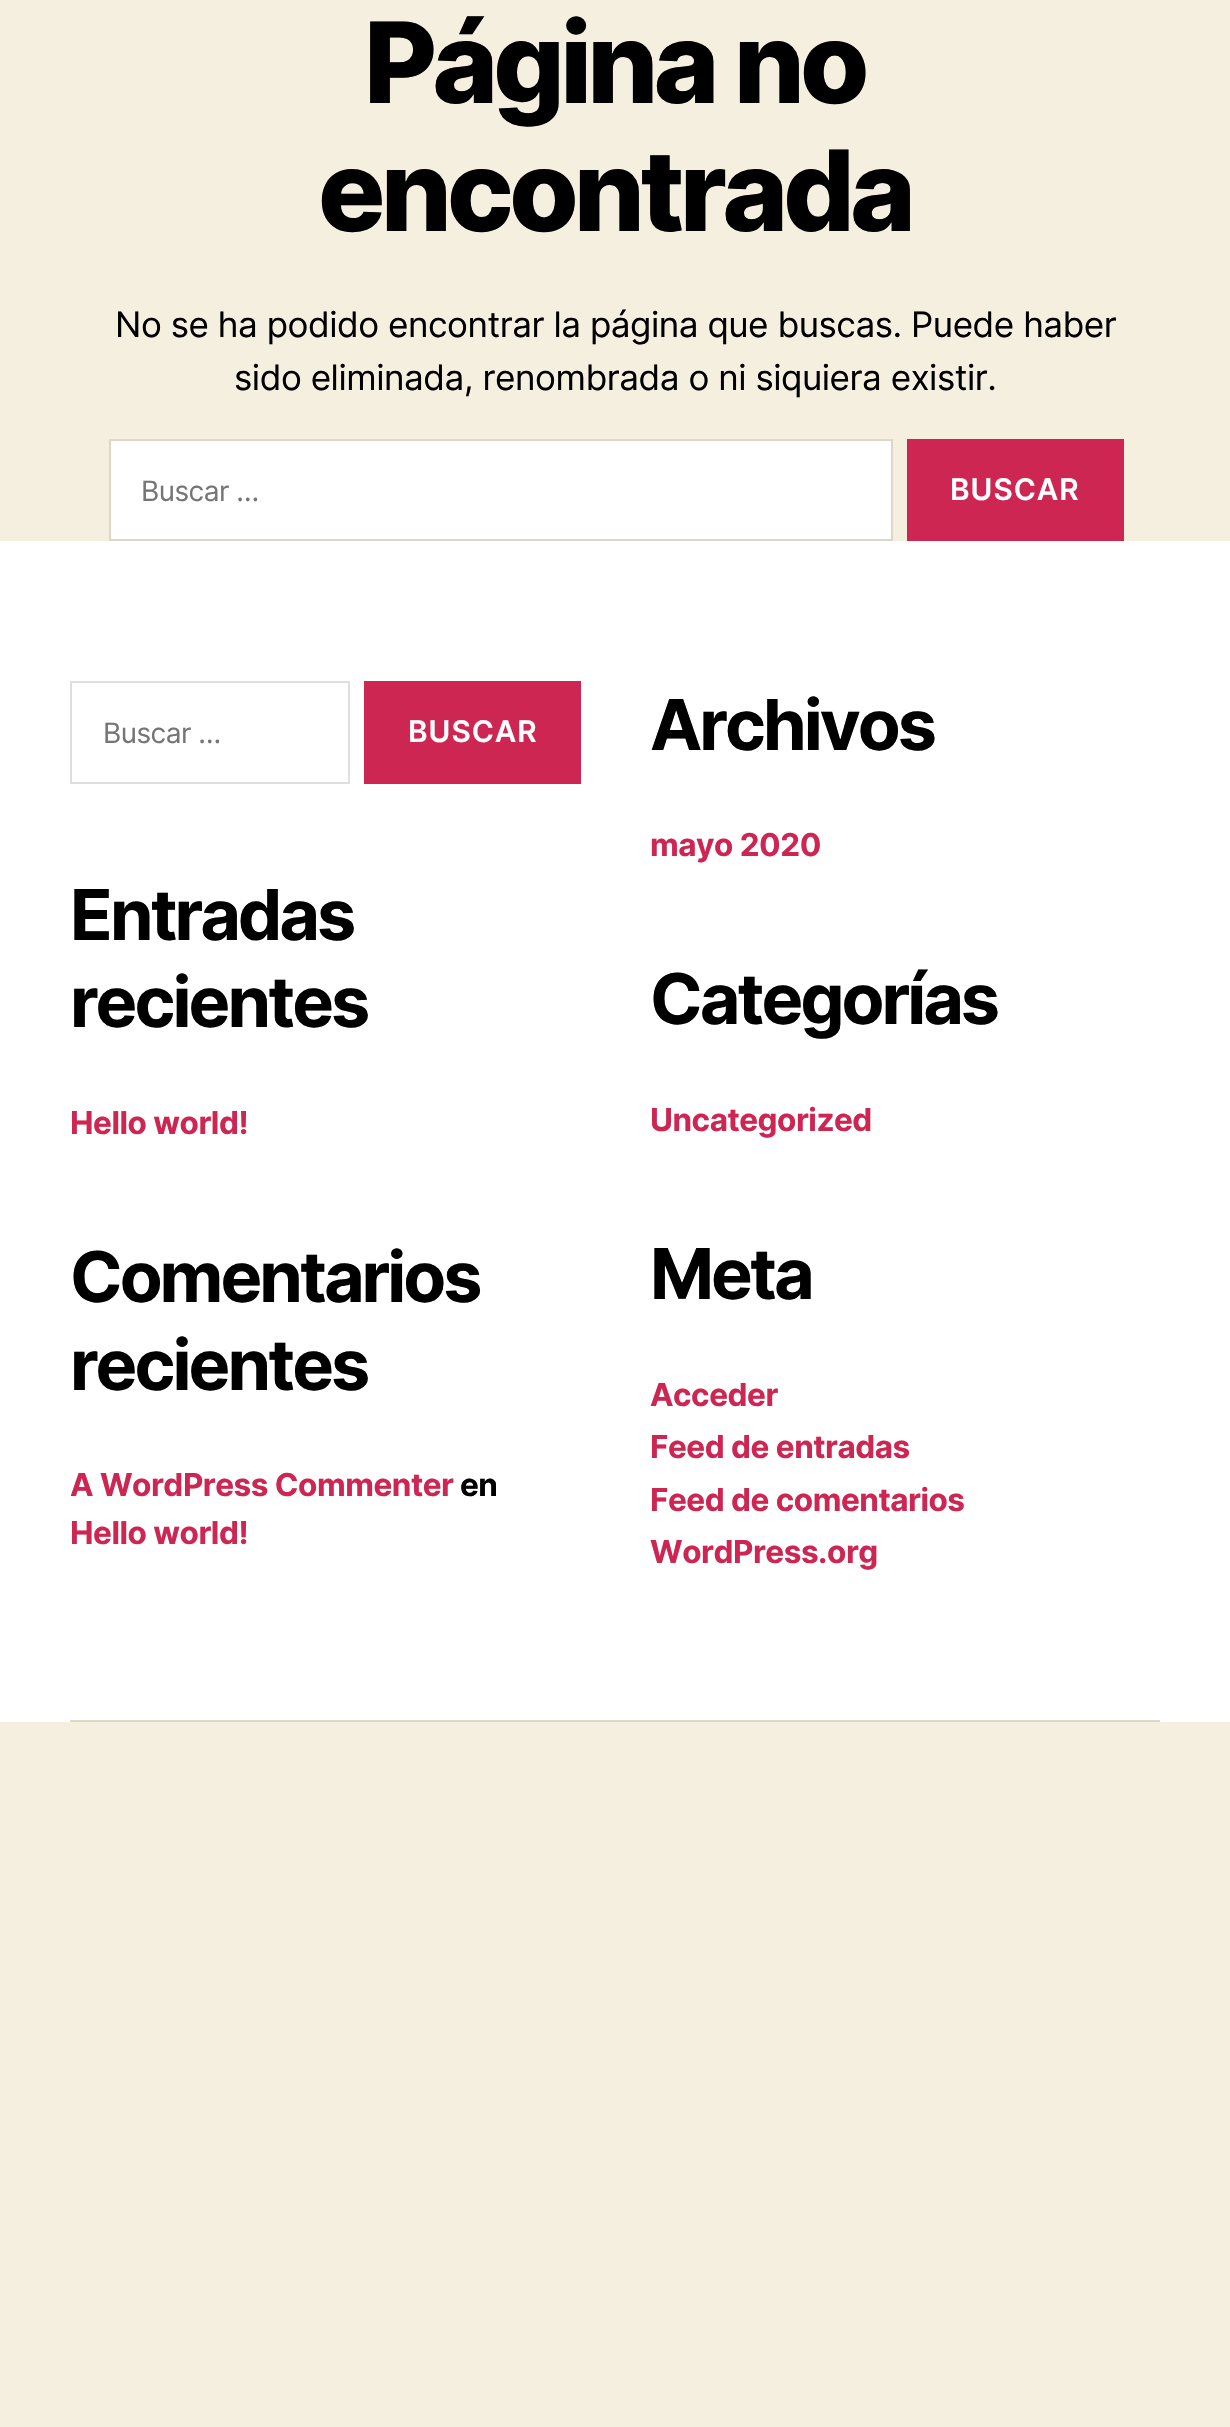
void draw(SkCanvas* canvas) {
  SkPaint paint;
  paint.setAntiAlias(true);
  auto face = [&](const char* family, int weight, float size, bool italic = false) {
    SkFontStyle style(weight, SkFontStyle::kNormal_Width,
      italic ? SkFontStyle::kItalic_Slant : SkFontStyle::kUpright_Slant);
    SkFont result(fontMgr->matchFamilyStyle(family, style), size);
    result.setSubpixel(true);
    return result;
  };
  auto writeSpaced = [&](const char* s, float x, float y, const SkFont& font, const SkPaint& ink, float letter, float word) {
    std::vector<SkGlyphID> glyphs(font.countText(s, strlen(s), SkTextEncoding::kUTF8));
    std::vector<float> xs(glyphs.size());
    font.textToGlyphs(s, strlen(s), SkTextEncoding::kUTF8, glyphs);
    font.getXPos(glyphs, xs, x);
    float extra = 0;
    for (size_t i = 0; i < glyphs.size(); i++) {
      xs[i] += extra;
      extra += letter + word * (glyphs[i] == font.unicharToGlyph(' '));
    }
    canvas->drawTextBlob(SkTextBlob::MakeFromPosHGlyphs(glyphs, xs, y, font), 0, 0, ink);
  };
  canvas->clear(0xfff5efe0);
  paint.setColor(0xffffffff);
  canvas->drawRect(SkRect::MakeXYWH(110, 440, 782, 100), paint);
  paint.setStroke(true);
  paint.setStrokeWidth(2);
  paint.setColor(0xffdcd7ca);
  canvas->drawRect(SkRect::MakeXYWH(110, 440, 782, 100), paint);
  paint.setStroke(false);
  {
    const struct { float x, y, w, h; SkColor color; } items[] = {
      {907, 439, 217, 102, 0xffcd2653},
      {0, 541, 1230, 1181, 0xffffffff},
      {70, 1720, 1090, 2, 0xffdcd7ca},
    };
    for (auto [x, y, w, h, color] : items) {
      paint.setColor(color);
      canvas->drawRect(SkRect::MakeXYWH(x, y, w, h), paint);
    }
  }
  paint.setStroke(true);
  paint.setColor(0xffdedfdf);
  canvas->drawRect(SkRect::MakeXYWH(71, 682, 278, 101), paint);
  paint.setStroke(false);
  paint.setColor(0xffcd2653);
  canvas->drawRect(SkRect::MakeXYWH(364, 681, 217, 103), paint);
  auto f0 = face("Inter", 800, 112);
  paint.setColor(0xff000000);
  writeSpaced("Página no", 364, 103, f0, paint, -4.75f, 0);
  writeSpaced("encontrada", 318, 231, f0, paint, -4.75f, 0);
  auto f1 = face("Inter", 400, 35);
  writeSpaced("No se ha podido encontrar la página que buscas. Puede haber", 115, 337, f1, paint, -0.47f, 0);
  writeSpaced("sido eliminada, renombrada o ni siquiera existir.", 234, 390, f1, paint, -0.47f, 0);
  auto f2 = face("Inter", 400, 28);
  paint.setColor(0xff757575);
  writeSpaced("Buscar …", 141, 501, f2, paint, -0.5f, 0);
  auto f3 = face("Inter", 600, 29.75f);
  paint.setColor(0xffffffff);
  writeSpaced("BUSCAR", 950, 500, f3, paint, 1, 0);
  paint.setColor(0xff757575);
  writeSpaced("Buscar …", 103, 743, f2, paint, -0.5f, 0);
  paint.setColor(0xffffffff);
  writeSpaced("BUSCAR", 408, 742, f3, paint, 1, 0);
  auto f4 = face("Inter", 700, 70);
  paint.setColor(0xff000000);
  writeSpaced("Entradas", 70, 940, f4, paint, -3, 0);
  writeSpaced("recientes", 70, 1027, f4, paint, -3, 0);
  auto f5 = face("Inter", 700, 31.5f);
  paint.setColor(0xffcd2653);
  writeSpaced("Hello world!", 70, 1134, f5, paint, -0.47f, 0);
  paint.setColor(0xff000000);
  writeSpaced("Comentarios", 70, 1302, f4, paint, -3, 0);
  writeSpaced("recientes", 70, 1390, f4, paint, -3, 0);
  paint.setColor(0xffcd2653);
  writeSpaced("A WordPress Commenter", 70, 1496, f5, paint, -0.47f, 0);
  paint.setColor(0xff000000);
  writeSpaced("en", 460, 1496, f5, paint, -0.47f, 0);
  paint.setColor(0xffcd2653);
  writeSpaced("Hello world!", 70, 1544, f5, paint, -0.47f, 0);
  paint.setColor(0xff000000);
  writeSpaced("Archivos", 650, 750, f4, paint, -3, 0);
  paint.setColor(0xffcd2653);
  writeSpaced("mayo 2020", 650, 856, f5, paint, -0.47f, 0);
  paint.setColor(0xff000000);
  writeSpaced("Categorías", 650, 1024, f4, paint, -3, 0);
  paint.setColor(0xffcd2653);
  writeSpaced("Uncategorized", 650, 1131, f5, paint, -0.47f, 0);
  paint.setColor(0xff000000);
  writeSpaced("Meta", 650, 1299, f4, paint, -3, 0);
  paint.setColor(0xffcd2653);
  {
    const struct { const char* s; float x, y; } items[] = {
      {"Acceder", 650, 1406},
      {"Feed de entradas", 650, 1458},
      {"Feed de comentarios", 650, 1511},
      {"WordPress.org", 650, 1563},
    };
    for (auto [s, x, y] : items) {
      writeSpaced(s, x, y, f5, paint, -0.47f, 0);
    }
  }
}
